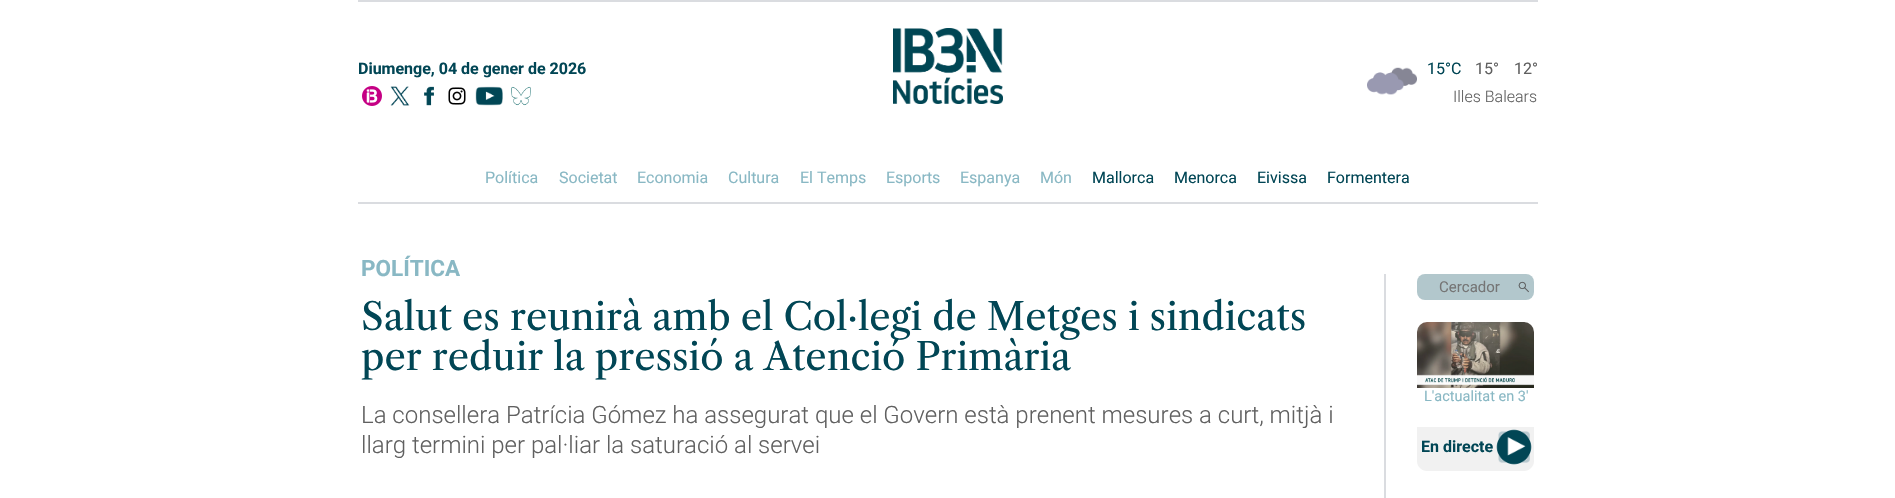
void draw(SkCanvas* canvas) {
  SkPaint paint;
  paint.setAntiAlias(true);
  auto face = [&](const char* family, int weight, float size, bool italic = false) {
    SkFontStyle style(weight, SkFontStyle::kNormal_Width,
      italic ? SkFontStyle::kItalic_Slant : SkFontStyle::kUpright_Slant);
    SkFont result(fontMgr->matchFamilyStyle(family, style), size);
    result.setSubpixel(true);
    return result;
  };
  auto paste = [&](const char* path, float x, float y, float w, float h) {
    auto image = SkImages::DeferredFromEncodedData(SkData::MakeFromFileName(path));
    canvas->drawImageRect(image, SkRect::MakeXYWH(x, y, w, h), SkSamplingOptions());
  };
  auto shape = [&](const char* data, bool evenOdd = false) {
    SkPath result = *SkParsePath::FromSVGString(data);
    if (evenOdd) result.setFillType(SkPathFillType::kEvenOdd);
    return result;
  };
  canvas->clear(0xffffffff);
  paint.setColor(0xffdadce0);
  canvas->drawRect(SkRect::MakeXYWH(358, 202, 1180, 2), paint);
  canvas->drawRect(SkRect::MakeXYWH(358, 0, 1180, 2), paint);
  paste("img/1.png", 362, 86, 20, 20);
  paste("img/2.png", 390, 86, 20, 20);
  paste("img/3.png", 424, 86, 10, 20);
  paste("img/4.png", 448, 87, 18, 18);
  paste("img/5.png", 475, 86, 28, 20);
  paste("img/6.png", 511, 86, 20, 20);
  paste("img/7.png", 893, 28, 110, 76);
  paste("img/8.png", 1367, 67, 50, 28);
  canvas->drawRect(SkRect::MakeXYWH(1384, 274, 2, 224), paint);
  paint.setColor(0xffb2c7cc);
  canvas->drawRoundRect(SkRect::MakeXYWH(1417, 274, 117, 26), 8, 8, paint);
  paste("img/9.png", 1518, 281, 11, 12);
  paste("img/10.png", 1417, 322, 117, 66);
  paint.setColor(0xfff1f1f1);
  canvas->drawPath(shape("M1417 427H1534V461C1534 466.5 1529.5 471 1524 471H1427C1421.5 471 1417 466.5 1417 461Z"), paint);
  paste("img/11.png", 1496, 429, 36, 36);
  auto f0 = face("Roboto", 700, 16);
  paint.setColor(0xff014655);
  canvas->drawString("Diumenge, 04 de gener de 2026", 358, 74, f0, paint);
  auto f1 = face("Roboto", 400, 16);
  canvas->drawString("15°C", 1427, 74, f1, paint);
  paint.setColor(0xff606060);
  canvas->drawString("15°", 1475, 74, f1, paint);
  canvas->drawString("12°", 1514, 74, f1, paint);
  auto f2 = face("Roboto", 300, 16);
  canvas->drawString("Illes Balears", 1453, 102, f2, paint);
  paint.setColor(0xff89b8c4);
  {
    const struct { const char* s; float x, y; } items[] = {
      {"Política", 485, 183},
      {"Societat", 559, 183},
      {"Economia", 637, 183},
      {"Cultura", 728, 183},
      {"El Temps", 800, 183},
      {"Esports", 886, 183},
      {"Espanya", 960, 183},
      {"Món", 1040, 183},
    };
    for (auto [s, x, y] : items) {
      canvas->drawString(s, x, y, f1, paint);
    }
  }
  paint.setColor(0xff014655);
  {
    const struct { const char* s; float x, y; } items[] = {
      {"Mallorca", 1092, 183},
      {"Menorca", 1174, 183},
      {"Eivissa", 1257, 183},
      {"Formentera", 1327, 183},
    };
    for (auto [s, x, y] : items) {
      canvas->drawString(s, x, y, f1, paint);
    }
  }
  auto f3 = face("Roboto", 700, 22.5f);
  paint.setColor(0xff89b8c4);
  canvas->drawString("POLÍTICA", 361, 276, f3, paint);
  auto f4 = face("Libre Caslon Text", 400, 38);
  paint.setColor(0xff014655);
  canvas->drawString("Salut es reunirà amb el Col·legi de Metges i sindicats", 361, 330, f4, paint);
  canvas->drawString("per reduir la pressió a Atenció Primària", 361, 370, f4, paint);
  auto f5 = face("Roboto", 300, 24);
  paint.setColor(0xff606060);
  canvas->drawString("La consellera Patrícia Gómez ha assegurat que el Govern està prenent mesures a curt, mitjà i", 361, 423, f5, paint);
  canvas->drawString("llarg termini per pal·liar la saturació al servei", 361, 453, f5, paint);
  auto f6 = face("Roboto", 400, 15);
  paint.setColor(0xff757575);
  canvas->drawString("Cercador", 1439, 292, f6, paint);
  auto f7 = face("Roboto", 400, 14.5f);
  paint.setColor(0xff89b8c4);
  canvas->drawString("L'actualitat en 3'", 1424, 401, f7, paint);
  paint.setColor(0xff014655);
  canvas->drawString("En directe", 1421, 452, f0, paint);
}
